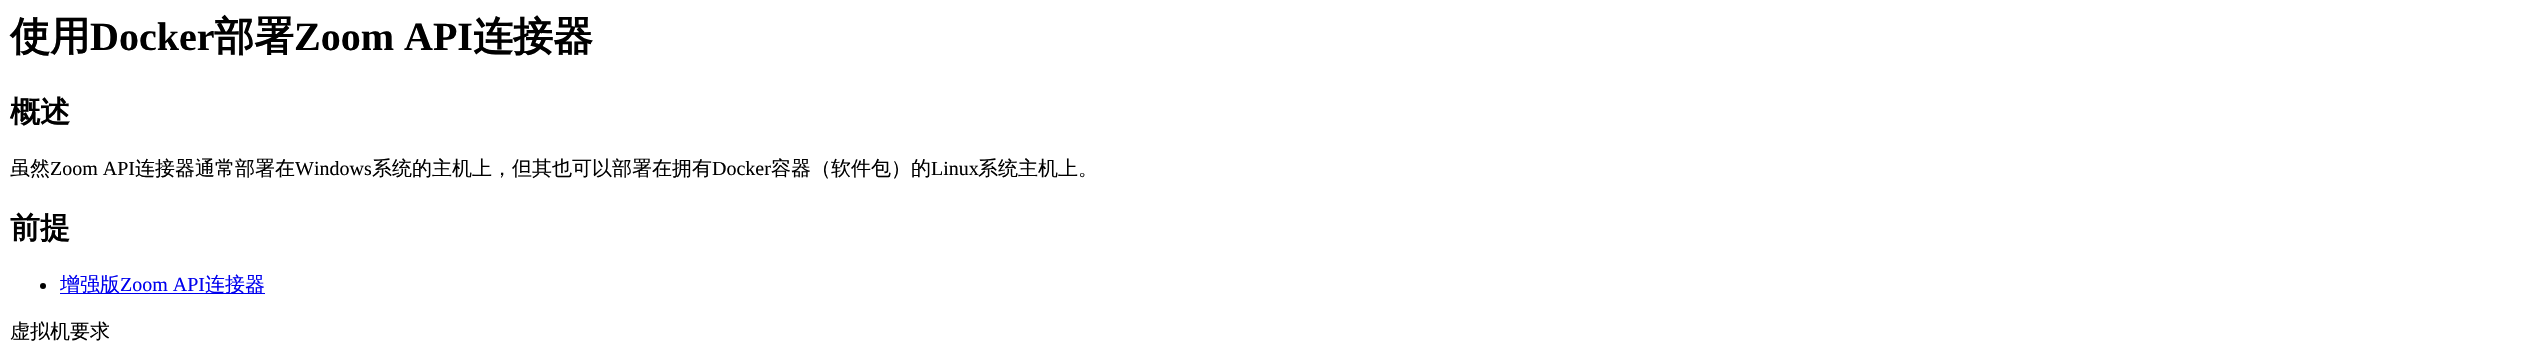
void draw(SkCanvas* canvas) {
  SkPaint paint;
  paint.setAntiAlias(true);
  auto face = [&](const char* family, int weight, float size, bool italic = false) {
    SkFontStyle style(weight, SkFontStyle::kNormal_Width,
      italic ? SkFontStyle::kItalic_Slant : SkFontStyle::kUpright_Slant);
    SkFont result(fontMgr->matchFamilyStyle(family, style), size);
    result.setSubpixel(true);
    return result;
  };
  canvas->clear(0xffffffff);
  paint.setColor(0xff000000);
  canvas->drawCircle(43, 286, 3, paint);
  paint.setColor(0xff0000ee);
  canvas->drawRect(SkRect::MakeXYWH(60, 293, 205, 1), paint);
  auto f0 = face("WenQuanYi Zen Hei", 700, 40);
  paint.setColor(0xff000000);
  canvas->drawString("使用", 10, 50, f0, paint);
  auto f1 = face("Liberation Serif", 700, 40);
  canvas->drawString("Docker", 90, 50, f1, paint);
  canvas->drawString("部署", 214, 50, f0, paint);
  canvas->drawString("Zoom API", 294, 50, f1, paint);
  canvas->drawString("连接器", 473, 50, f0, paint);
  auto f2 = face("WenQuanYi Zen Hei", 700, 30);
  canvas->drawString("概述", 10, 122, f2, paint);
  auto f3 = face("WenQuanYi Zen Hei", 500, 20);
  canvas->drawString("虽然", 10, 175, f3, paint);
  auto f4 = face("Liberation Serif", 400, 20);
  canvas->drawString("Zoom API", 50, 175, f4, paint);
  canvas->drawString("连接器通常部署在", 135, 175, f3, paint);
  canvas->drawString("Windows", 295, 175, f4, paint);
  canvas->drawString("系统的主机上，但其也可以部署在拥有", 372, 175, f3, paint);
  canvas->drawString("Docker", 712, 175, f4, paint);
  canvas->drawString("容器（软件包）的", 771, 175, f3, paint);
  canvas->drawString("Linux", 931, 175, f4, paint);
  canvas->drawString("系统主机上。", 978, 175, f3, paint);
  canvas->drawString("前提", 10, 238, f2, paint);
  paint.setColor(0xff0000ee);
  canvas->drawString("增强版", 60, 291, f3, paint);
  canvas->drawString("Zoom API", 120, 291, f4, paint);
  canvas->drawString("连接器", 205, 291, f3, paint);
  paint.setColor(0xff000000);
  canvas->drawString("虚拟机要求", 10, 338, f3, paint);
}
